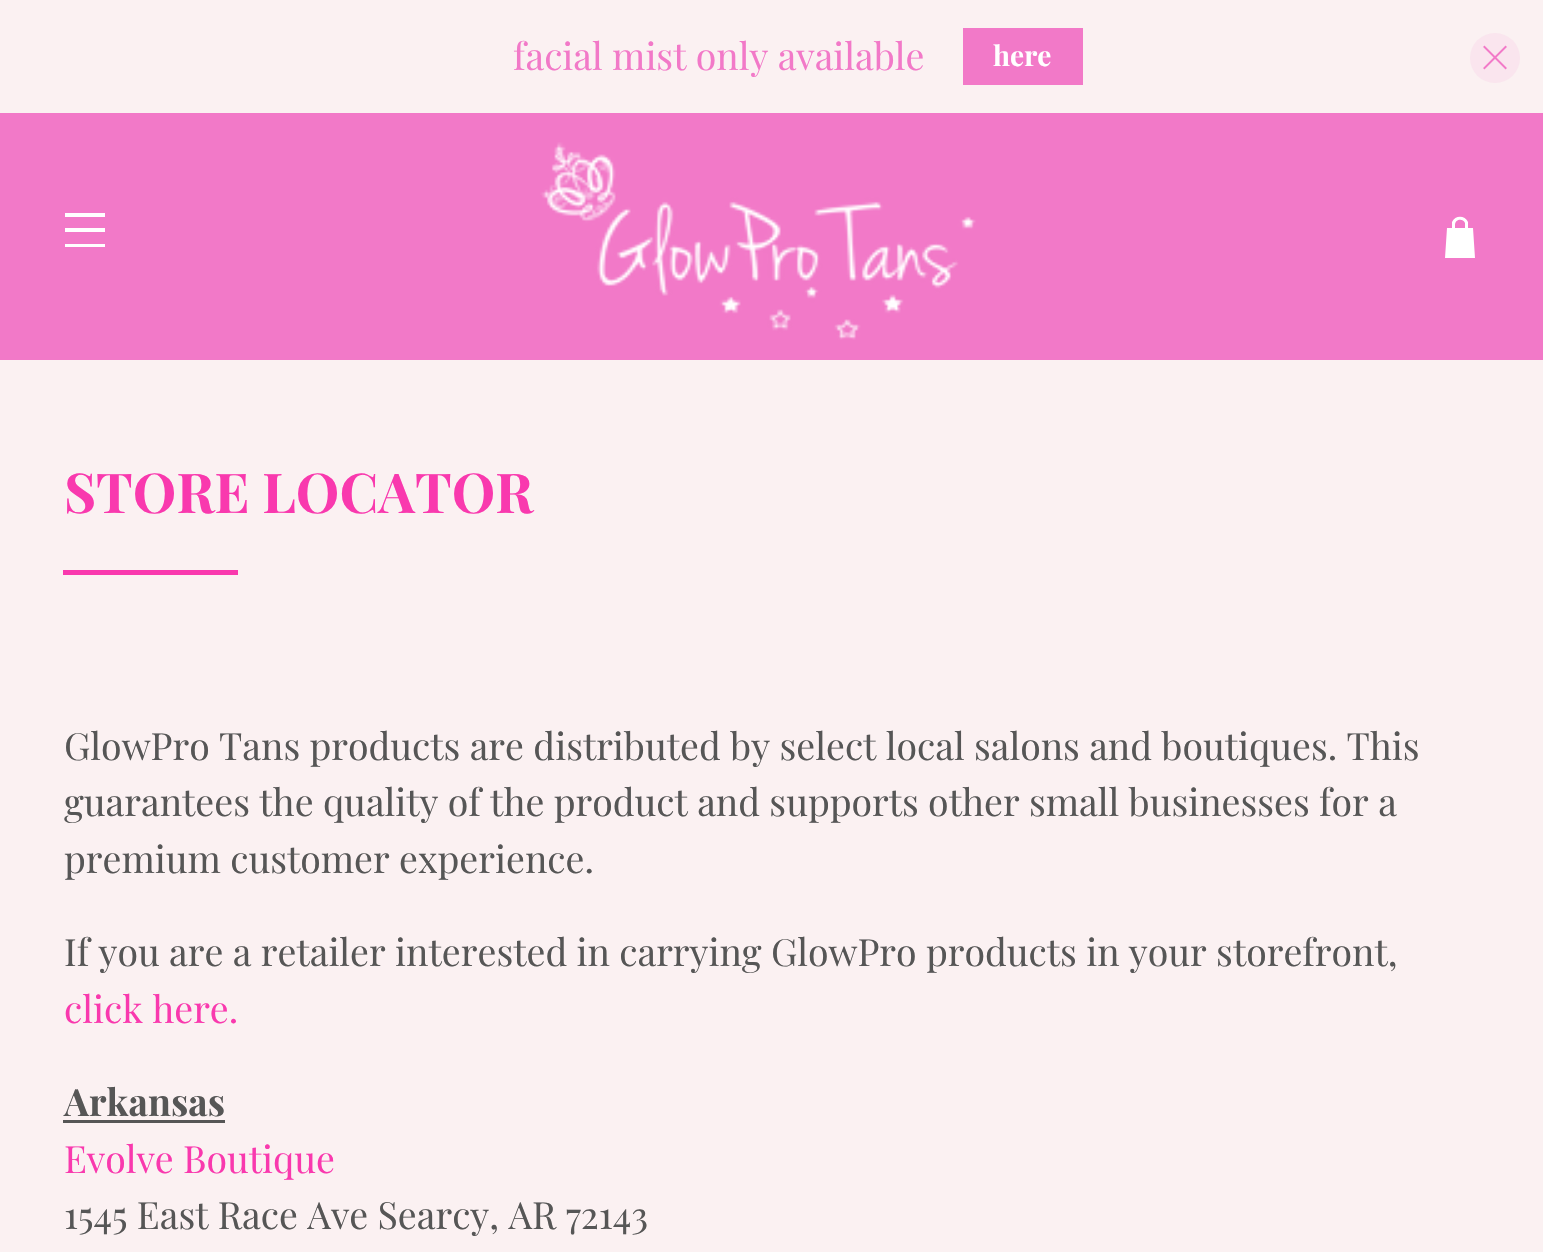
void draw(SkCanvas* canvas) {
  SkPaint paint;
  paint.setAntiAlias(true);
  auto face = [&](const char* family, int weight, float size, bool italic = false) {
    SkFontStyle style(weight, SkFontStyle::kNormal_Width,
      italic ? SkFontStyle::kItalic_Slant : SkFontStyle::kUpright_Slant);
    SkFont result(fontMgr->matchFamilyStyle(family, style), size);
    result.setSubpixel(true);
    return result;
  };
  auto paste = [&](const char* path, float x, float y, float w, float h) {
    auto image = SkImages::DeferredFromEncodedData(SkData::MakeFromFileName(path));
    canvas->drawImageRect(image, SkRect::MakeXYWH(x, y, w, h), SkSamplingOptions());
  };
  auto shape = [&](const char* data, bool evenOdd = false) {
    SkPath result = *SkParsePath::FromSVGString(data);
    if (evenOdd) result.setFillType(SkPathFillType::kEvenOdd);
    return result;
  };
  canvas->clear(0xfffbf1f2);
  paint.setColor(0xfff279c8);
  canvas->drawRect(SkRect::MakeXYWH(963, 28, 120, 57), paint);
  paint.setColor(0xfffae5ee);
  canvas->drawCircle(1495, 58, 25, paint);
  paste("img/1.png", 1483, 45, 24, 25);
  {
    const struct { float x, y, w, h; SkColor color; } items[] = {
      {0, 113, 1543, 247, 0xfff279c8},
      {65, 213, 40, 4, 0xffffffff},
      {65, 228, 40, 4, 0xffffffff},
      {65, 244, 40, 3, 0xffffffff},
    };
    for (auto [x, y, w, h, color] : items) {
      paint.setColor(color);
      canvas->drawRect(SkRect::MakeXYWH(x, y, w, h), paint);
    }
  }
  paste("img/2.png", 540, 142, 436, 198);
  canvas->drawPath(shape("M1473 228H1468V222C1465 215 1455 215 1452 222V228H1447L1445 258H1475ZM1455 225C1455 219 1463 218 1465 223V228H1455Z"), paint);
  paint.setColor(0xfff939ae);
  canvas->drawRect(SkRect::MakeXYWH(63, 570, 175, 5), paint);
  paint.setColor(0xff565656);
  canvas->drawRect(SkRect::MakeXYWH(63, 1120, 162, 3), paint);
  auto f0 = face("Playfair Display", 400, 37.5f);
  paint.setColor(0xfff279c8);
  canvas->drawString("facial mist only available", 513, 70, f0, paint);
  auto f1 = face("Playfair Display", 700, 28);
  paint.setColor(0xffffffff);
  canvas->drawString("here", 993, 66, f1, paint);
  auto f2 = face("Playfair Display", 700, 55);
  paint.setColor(0xfff939ae);
  canvas->drawString("STORE LOCATOR", 64, 513, f2, paint);
  paint.setColor(0xff565656);
  {
    const struct { const char* s; float x, y; } items[] = {
      {"GlowPro Tans products are distributed by select local salons and boutiques. This", 64, 760},
      {"guarantees the quality of the product and supports other small businesses for a", 64, 816},
      {"premium customer experience.", 64, 873},
      {"If you are a retailer interested in carrying GlowPro products in your storefront,", 64, 966},
    };
    for (auto [s, x, y] : items) {
      canvas->drawString(s, x, y, f0, paint);
    }
  }
  paint.setColor(0xfff939ae);
  canvas->drawString("click here.", 64, 1023, f0, paint);
  auto f3 = face("Playfair Display", 700, 37.5f);
  paint.setColor(0xff565656);
  canvas->drawString("Arkansas", 64, 1116, f3, paint);
  paint.setColor(0xfff939ae);
  canvas->drawString("Evolve Boutique", 64, 1173, f0, paint);
  paint.setColor(0xff565656);
  canvas->drawString("1545 East Race Ave Searcy, AR 72143", 64, 1229, f0, paint);
}
